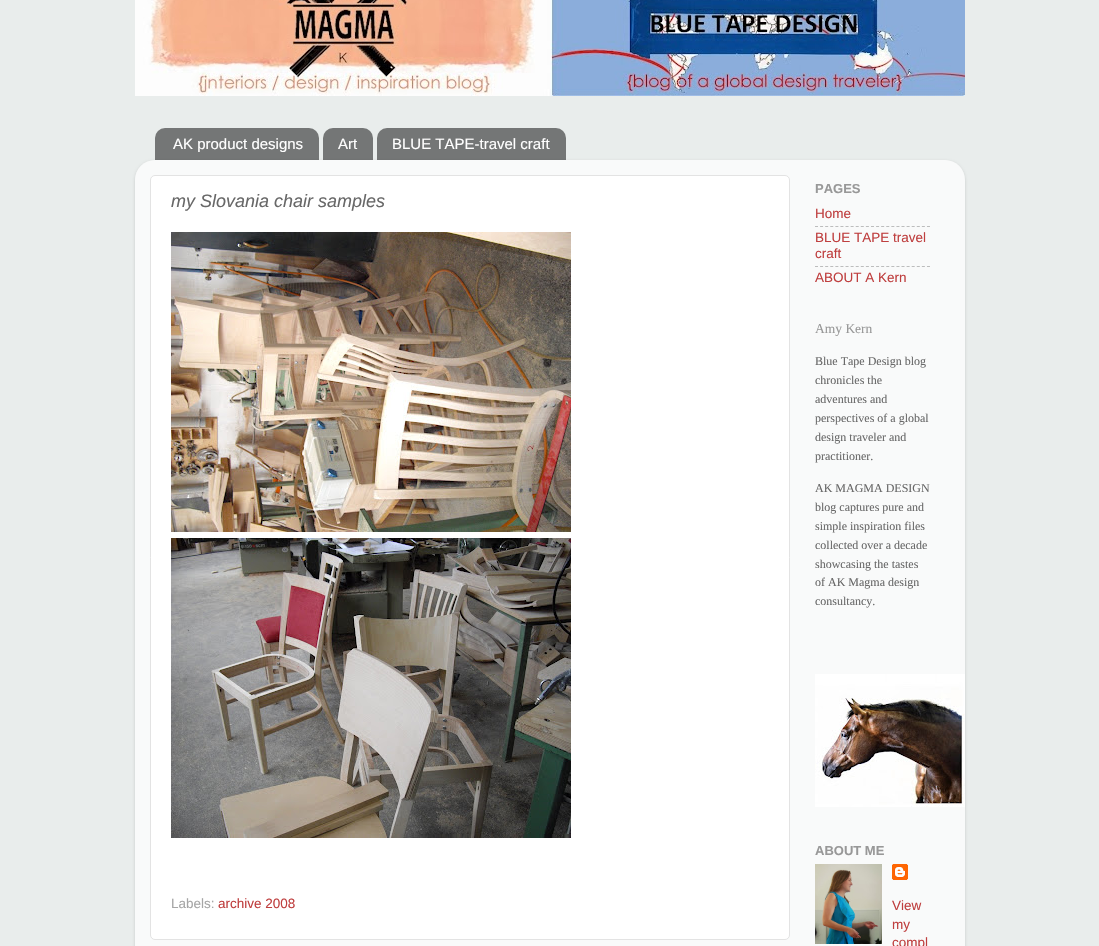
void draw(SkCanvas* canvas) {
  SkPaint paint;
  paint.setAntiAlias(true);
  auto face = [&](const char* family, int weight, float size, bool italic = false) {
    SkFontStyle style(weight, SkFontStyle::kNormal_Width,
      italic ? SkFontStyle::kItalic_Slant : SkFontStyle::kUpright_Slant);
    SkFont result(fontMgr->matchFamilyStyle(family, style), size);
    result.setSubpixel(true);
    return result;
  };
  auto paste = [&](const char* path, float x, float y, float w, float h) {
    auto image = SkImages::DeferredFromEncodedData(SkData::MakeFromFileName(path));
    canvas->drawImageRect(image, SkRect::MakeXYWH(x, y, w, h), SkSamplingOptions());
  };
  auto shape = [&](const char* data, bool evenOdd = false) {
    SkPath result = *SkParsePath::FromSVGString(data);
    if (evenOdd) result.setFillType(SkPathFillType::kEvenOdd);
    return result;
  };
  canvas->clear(0xffe9edec);
  paste("img/1.png", 135, 0, 830, 96);
  paste("img/2.png", 155, 128, 164, 32);
  paste("img/3.png", 323, 128, 50, 32);
  paste("img/4.png", 377, 128, 189, 32);
  canvas->save();
  canvas->clipPath(shape("M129 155H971V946H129ZM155 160H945C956 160 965 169 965 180V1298H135V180C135 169 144 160 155 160Z", true), true);
  paint.setColor(0x26000000);
  paint.setMaskFilter(SkMaskFilter::MakeBlur(kNormal_SkBlurStyle, 1.5f));
  canvas->drawRoundRect(SkRect::MakeXYWH(135, 161, 830, 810), 20, 20, paint);
  paint.setMaskFilter(nullptr);
  canvas->restore();
  paste("img/5.png", 135, 160, 830, 786);
  paint.setColor(0xffffffff);
  canvas->drawRoundRect(SkRect::MakeXYWH(150.5f, 175.5f, 639, 764), 4.5f, 4.5f, paint);
  paint.setStroke(true);
  paint.setStrokeWidth(1);
  paint.setColor(0xffe3e3e3);
  canvas->drawRoundRect(SkRect::MakeXYWH(150.5f, 175.5f, 639, 764), 4.5f, 4.5f, paint);
  paste("img/6.png", 171, 232, 400, 300);
  paste("img/7.png", 171, 538, 400, 300);
  paint.setColor(0xffbcbdbd);
  paint.setPathEffect(SkDashPathEffect::Make({{3, 2.09f}}, 0));
  canvas->drawPath(shape("M815 226.5H930"), paint);
  paint.setPathEffect(nullptr);
  paint.setPathEffect(SkDashPathEffect::Make({{3, 2.09f}}, 0));
  canvas->drawPath(shape("M815 266.5H930"), paint);
  paint.setPathEffect(nullptr);
  paste("img/8.png", 815, 674, 150, 133);
  paste("img/9.png", 815, 864, 67, 80);
  paste("img/10.png", 892, 864, 16, 16);
  auto f0 = face("Liberation Sans", 400, 15);
  paint.setStroke(false);
  paint.setColor(0xffffffff);
  {
    const struct { const char* s; float x, y; } items[] = {
      {"AK product designs", 173, 149},
      {"Art", 338, 149},
      {"BLUE TAPE-travel craft", 392, 149},
    };
    for (auto [s, x, y] : items) {
      canvas->drawString(s, x, y, f0, paint);
    }
  }
  auto f1 = face("Liberation Sans", 400, 18, true);
  paint.setColor(0xff686868);
  canvas->drawString("my Slovania chair samples", 171, 207, f1, paint);
  auto f2 = face("Liberation Sans", 400, 13.5f);
  paint.setColor(0xffa6a6a6);
  canvas->drawString("Labels:", 171, 908, f2, paint);
  paint.setColor(0xffbf3f3f);
  canvas->drawString("archive 2008", 218, 908, f2, paint);
  auto f3 = face("Liberation Sans", 700, 13);
  paint.setColor(0xff989898);
  canvas->drawString("PAGES", 815, 193, f3, paint);
  paint.setColor(0xffbf3f3f);
  {
    const struct { const char* s; float x, y; } items[] = {
      {"Home", 815, 218},
      {"BLUE TAPE travel", 815, 242},
      {"craft", 815, 258},
      {"ABOUT A Kern", 815, 282},
    };
    for (auto [s, x, y] : items) {
      canvas->drawString(s, x, y, f2, paint);
    }
  }
  auto f4 = face("Liberation Serif", 400, 13.5f);
  paint.setColor(0xff989898);
  canvas->drawString("Amy Kern", 815, 333, f4, paint);
  auto f5 = face("Liberation Serif", 400, 12);
  paint.setColor(0xff686868);
  {
    const struct { const char* s; float x, y; } items[] = {
      {"Blue Tape Design blog", 815, 365},
      {"chronicles the", 815, 384},
      {"adventures and", 815, 403},
      {"perspectives of a global", 815, 422},
      {"design traveler and", 815, 441},
      {"practitioner.", 815, 460},
      {"AK MAGMA DESIGN", 815, 492},
      {"blog captures pure and", 815, 511},
      {"simple inspiration files", 815, 530},
      {"collected over a decade", 815, 549},
      {"showcasing the tastes", 815, 568},
      {"of AK Magma design", 815, 586},
      {"consultancy.", 815, 605},
    };
    for (auto [s, x, y] : items) {
      canvas->drawString(s, x, y, f5, paint);
    }
  }
  paint.setColor(0xff989898);
  canvas->drawString("ABOUT ME", 815, 855, f3, paint);
  paint.setColor(0xffbf3f3f);
  {
    const struct { const char* s; float x, y; } items[] = {
      {"View", 892, 910},
      {"my", 892, 929},
      {"compl", 892, 947},
    };
    for (auto [s, x, y] : items) {
      canvas->drawString(s, x, y, f2, paint);
    }
  }
}
